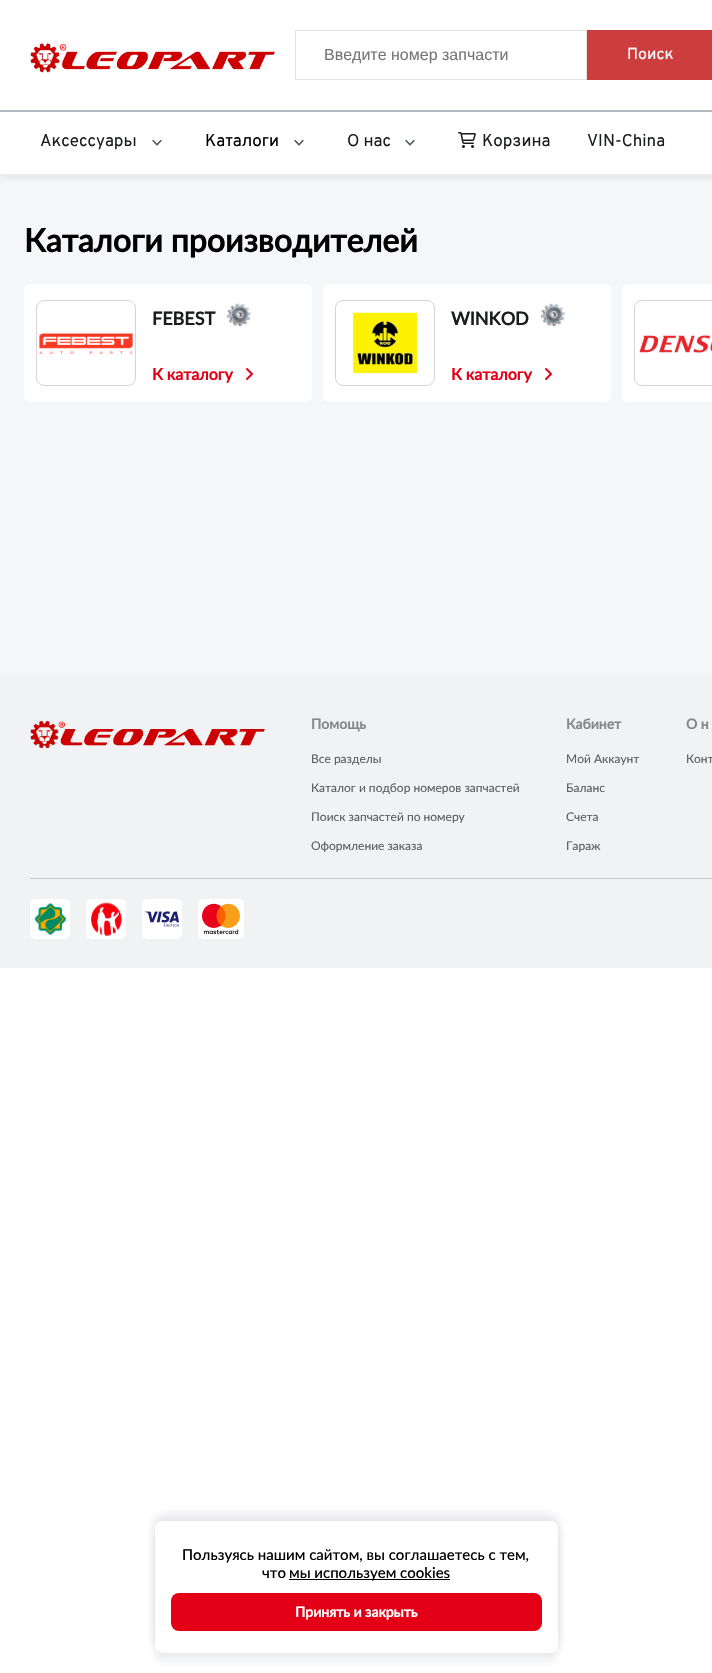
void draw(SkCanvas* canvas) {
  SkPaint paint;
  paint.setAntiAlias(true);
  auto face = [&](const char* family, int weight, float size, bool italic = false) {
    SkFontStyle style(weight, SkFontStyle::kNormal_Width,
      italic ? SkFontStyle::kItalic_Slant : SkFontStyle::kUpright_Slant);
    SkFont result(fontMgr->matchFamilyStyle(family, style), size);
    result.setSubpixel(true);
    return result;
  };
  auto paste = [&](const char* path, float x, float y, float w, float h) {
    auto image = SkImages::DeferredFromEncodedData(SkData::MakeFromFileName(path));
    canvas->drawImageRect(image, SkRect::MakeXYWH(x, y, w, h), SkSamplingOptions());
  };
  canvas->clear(0xffffffff);
  paste("img/1.png", 30, 43, 245, 30);
  paint.setStroke(true);
  paint.setStrokeWidth(1);
  paint.setColor(0xffe3e3e3);
  canvas->drawRect(SkRect::MakeXYWH(295.5f, 30.5f, 291, 49), paint);
  paint.setStroke(false);
  paint.setColor(0xffcc3d3d);
  canvas->drawRect(SkRect::MakeXYWH(587, 30, 125, 50), paint);
  paint.setColor(0xfff5f6f7);
  canvas->drawRect(SkRect::MakeXYWH(0, 174, 712, 500), paint);
  canvas->save();
  canvas->clipRect(SkRect::MakeXYWH(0, 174, 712, 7));
  paint.setColor(0x1410142d);
  paint.setMaskFilter(SkMaskFilter::MakeBlur(kNormal_SkBlurStyle, 5));
  canvas->drawRect(SkRect::MakeXYWH(0, 114, 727, 64), paint);
  paint.setMaskFilter(nullptr);
  canvas->restore();
  paint.setColor(0xffb4b9c0);
  canvas->drawRect(SkRect::MakeXYWH(0, 110, 712, 2), paint);
  paste("img/2.png", 152, 139, 10, 7);
  paste("img/2.png", 294, 139, 10, 7);
  paste("img/2.png", 405, 139, 10, 7);
  paste("img/3.png", 458, 132, 18, 16);
  paint.setColor(0xffffffff);
  canvas->drawRoundRect(SkRect::MakeXYWH(24, 284, 288, 118), 6, 6, paint);
  paste("img/4.png", 36, 300, 100, 86);
  paste("img/5.png", 227, 303, 24, 24);
  paste("img/6.png", 246, 368, 7, 12);
  canvas->drawRoundRect(SkRect::MakeXYWH(323, 284, 288, 118), 6, 6, paint);
  paste("img/7.png", 335, 300, 100, 86);
  paste("img/8.png", 541, 303, 24, 24);
  paste("img/6.png", 545, 368, 7, 12);
  canvas->drawRoundRect(SkRect::MakeXYWH(622, 284, 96, 118), 6, 6, paint);
  paste("img/9.png", 634, 300, 78, 86);
  paint.setColor(0xfff1f2f4);
  canvas->drawRect(SkRect::MakeXYWH(0, 674, 712, 294), paint);
  paste("img/10.png", 30, 720, 235, 29);
  paint.setColor(0xffc6c7c9);
  canvas->drawRect(SkRect::MakeXYWH(30, 878, 682, 1), paint);
  paint.setColor(0xffffffff);
  canvas->drawRoundRect(SkRect::MakeXYWH(30, 899, 40, 40), 5, 5, paint);
  paste("img/11.png", 34, 903, 33, 33);
  canvas->drawRoundRect(SkRect::MakeXYWH(86, 899, 40, 40), 5, 5, paint);
  paste("img/12.png", 91, 901, 31, 36);
  canvas->drawRoundRect(SkRect::MakeXYWH(142, 899, 40, 40), 5, 5, paint);
  paste("img/13.png", 144, 911, 35, 16);
  canvas->drawRoundRect(SkRect::MakeXYWH(198, 899, 46, 40), 5, 5, paint);
  paste("img/14.png", 202, 903, 38, 32);
  paint.setColor(0x1410142d);
  paint.setMaskFilter(SkMaskFilter::MakeBlur(kNormal_SkBlurStyle, 5));
  canvas->drawRoundRect(SkRect::MakeXYWH(155, 1517, 403, 132), 8, 8, paint);
  paint.setMaskFilter(nullptr);
  paint.setColor(0x0d10142d);
  paint.setMaskFilter(SkMaskFilter::MakeBlur(kNormal_SkBlurStyle, 7));
  canvas->drawRoundRect(SkRect::MakeXYWH(155, 1513, 403, 132), 8, 8, paint);
  paint.setMaskFilter(nullptr);
  paint.setColor(0x1410142d);
  paint.setMaskFilter(SkMaskFilter::MakeBlur(kNormal_SkBlurStyle, 5));
  canvas->drawRoundRect(SkRect::MakeXYWH(155, 1529, 403, 132), 8, 8, paint);
  paint.setMaskFilter(nullptr);
  paint.setColor(0xffffffff);
  canvas->drawRoundRect(SkRect::MakeXYWH(155, 1521, 403, 132), 8, 8, paint);
  paint.setColor(0xff000000);
  canvas->drawRect(SkRect::MakeXYWH(289, 1579, 161, 1), paint);
  paint.setColor(0xffe30016);
  canvas->drawRoundRect(SkRect::MakeXYWH(171, 1593, 371, 38), 8, 8, paint);
  auto f0 = face("Liberation Sans", 400, 16);
  paint.setColor(0xff757575);
  canvas->drawString("Введите номер запчасти", 324, 60, f0, paint);
  auto f1 = face("Overpass", 400, 16);
  paint.setColor(0xffffffff);
  canvas->drawString("Поиск", 627, 59, f1, paint);
  auto f2 = face("Overpass", 400, 17);
  paint.setColor(0xff1a1c1f);
  canvas->drawString("Аксессуары", 40, 146, f2, paint);
  paint.setColor(0xff000000);
  canvas->drawString("Каталоги", 205, 146, f2, paint);
  paint.setColor(0xff1a1c1f);
  {
    const struct { const char* s; float x, y; } items[] = {
      {"О нас", 347, 146},
      {"Корзина", 482, 146},
      {"VIN-China", 587, 146},
    };
    for (auto [s, x, y] : items) {
      canvas->drawString(s, x, y, f2, paint);
    }
  }
  auto f3 = face("Lato", 700, 32);
  paint.setColor(0xff000000);
  canvas->drawString("Каталоги производителей", 24, 252, f3, paint);
  auto f4 = face("Lato", 700, 18);
  paint.setColor(0xff1a1c1f);
  canvas->drawString("FEBEST", 152, 325, f4, paint);
  auto f5 = face("Lato", 700, 16);
  paint.setColor(0xffe30016);
  canvas->drawString("К каталогу", 152, 380, f5, paint);
  paint.setColor(0xff1a1c1f);
  canvas->drawString("WINKOD", 451, 325, f4, paint);
  paint.setColor(0xffe30016);
  canvas->drawString("К каталогу", 451, 380, f5, paint);
  auto f6 = face("Lato", 700, 14);
  paint.setColor(0xff86878a);
  canvas->drawString("Помощь", 311, 729, f6, paint);
  auto f7 = face("Lato", 400, 12);
  paint.setColor(0xff5b5c5f);
  {
    const struct { const char* s; float x, y; } items[] = {
      {"Все разделы", 311, 763},
      {"Каталог и подбор номеров запчастей", 311, 792},
      {"Поиск запчастей по номеру", 311, 821},
      {"Оформление заказа", 311, 850},
    };
    for (auto [s, x, y] : items) {
      canvas->drawString(s, x, y, f7, paint);
    }
  }
  paint.setColor(0xff86878a);
  canvas->drawString("Кабинет", 566, 729, f6, paint);
  paint.setColor(0xff5b5c5f);
  {
    const struct { const char* s; float x, y; } items[] = {
      {"Мой Аккаунт", 566, 763},
      {"Баланс", 566, 792},
      {"Счета", 566, 821},
      {"Гараж", 566, 850},
    };
    for (auto [s, x, y] : items) {
      canvas->drawString(s, x, y, f7, paint);
    }
  }
  paint.setColor(0xff86878a);
  canvas->drawString("О н", 686, 729, f6, paint);
  paint.setColor(0xff5b5c5f);
  canvas->drawString("Конт", 686, 763, f7, paint);
  auto f8 = face("Lato", 500, 15);
  paint.setColor(0xff000000);
  {
    const struct { const char* s; float x, y; } items[] = {
      {"Пользуясь нашим сайтом, вы соглашаетесь с тем,", 182, 1560},
      {"что", 262, 1578},
      {"мы используем cookies", 289, 1578},
    };
    for (auto [s, x, y] : items) {
      canvas->drawString(s, x, y, f8, paint);
    }
  }
  paint.setColor(0xffffffff);
  canvas->drawString("Принять и закрыть", 295, 1617, f6, paint);
}
